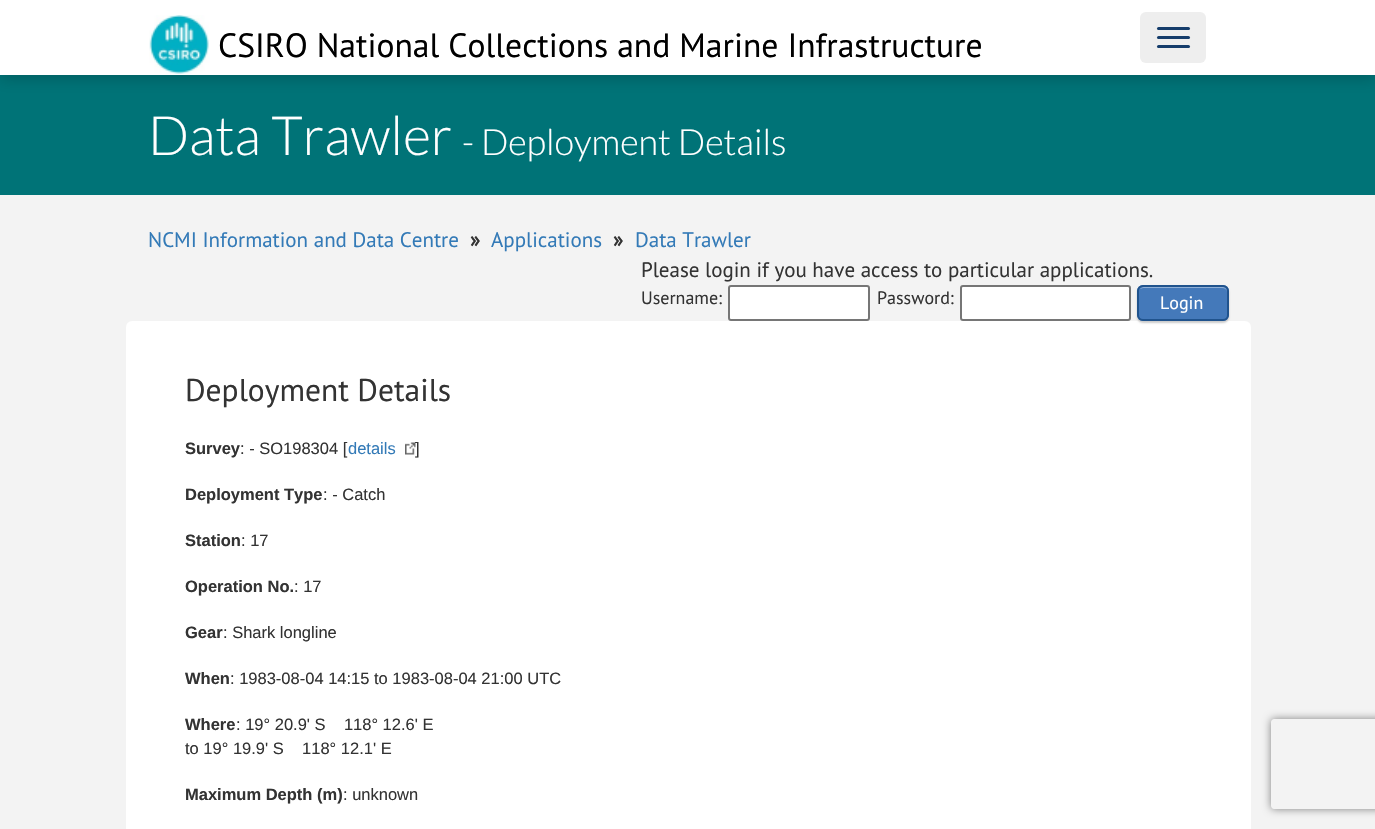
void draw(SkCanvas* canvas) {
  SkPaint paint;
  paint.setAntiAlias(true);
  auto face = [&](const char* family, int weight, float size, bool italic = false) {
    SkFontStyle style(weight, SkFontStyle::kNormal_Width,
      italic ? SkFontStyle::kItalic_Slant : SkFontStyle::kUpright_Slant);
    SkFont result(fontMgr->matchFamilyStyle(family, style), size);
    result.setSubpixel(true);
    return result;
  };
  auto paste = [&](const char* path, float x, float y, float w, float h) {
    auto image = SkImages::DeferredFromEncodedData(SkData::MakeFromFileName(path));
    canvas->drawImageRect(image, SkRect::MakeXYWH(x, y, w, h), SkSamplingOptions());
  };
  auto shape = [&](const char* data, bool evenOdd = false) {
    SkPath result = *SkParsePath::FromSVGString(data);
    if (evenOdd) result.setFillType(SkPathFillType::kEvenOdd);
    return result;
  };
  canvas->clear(0xfff3f3f3);
  paint.setColor(0xff007377);
  canvas->drawRect(SkRect::MakeXYWH(0, 75, 1375, 120), paint);
  paint.setColor(0x33000000);
  paint.setMaskFilter(SkMaskFilter::MakeBlur(kNormal_SkBlurStyle, 7.5f));
  canvas->drawRect(SkRect::MakeXYWH(0, 3, 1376, 75), paint);
  paint.setMaskFilter(nullptr);
  paint.setColor(0xffffffff);
  canvas->drawRect(SkRect::MakeXYWH(0, 0, 1375, 75), paint);
  paste("img/1.png", 149, 15, 61, 59);
  paint.setColor(0xffeeeeee);
  canvas->drawRoundRect(SkRect::MakeXYWH(1140, 12, 66, 51), 6, 6, paint);
  paint.setColor(0xff153d6b);
  canvas->drawRoundRect(SkRect::MakeXYWH(1157, 27, 33, 3), 1.5f, 1.5f, paint);
  canvas->drawRoundRect(SkRect::MakeXYWH(1157, 36, 33, 3), 1.5f, 1.5f, paint);
  canvas->drawRoundRect(SkRect::MakeXYWH(1157, 45, 33, 3), 1.5f, 1.5f, paint);
  paint.setColor(0xffffffff);
  canvas->drawRoundRect(SkRect::MakeXYWH(729, 286, 140, 34), 2, 2, paint);
  paint.setStroke(true);
  paint.setStrokeWidth(2);
  paint.setColor(0xff767676);
  canvas->drawRoundRect(SkRect::MakeXYWH(729, 286, 140, 34), 2, 2, paint);
  paint.setStroke(false);
  paint.setColor(0xffffffff);
  canvas->drawRoundRect(SkRect::MakeXYWH(961, 286, 169, 34), 2, 2, paint);
  paint.setStroke(true);
  paint.setColor(0xff767676);
  canvas->drawRoundRect(SkRect::MakeXYWH(961, 286, 169, 34), 2, 2, paint);
  paint.setStroke(false);
  paint.setColor(0xffffffff);
  canvas->drawRoundRect(SkRect::MakeXYWH(126, 321, 1125, 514), 6, 6, paint);
  paint.setColor(0x33000000);
  paint.setMaskFilter(SkMaskFilter::MakeBlur(kNormal_SkBlurStyle, 1));
  canvas->drawRoundRect(SkRect::MakeXYWH(1137, 287, 92, 36), 6, 6, paint);
  paint.setMaskFilter(nullptr);
  paint.setColor(0xff4479ba);
  canvas->drawRoundRect(SkRect::MakeXYWH(1137, 285, 92, 36), 6, 6, paint);
  paint.setColor(0xff8fafd6);
  canvas->drawPath(shape("M1143 288H1222C1225 288 1227 290 1227 292C1227 289 1225 287 1222 287H1144C1142 287 1141 288 1140 289Z"), paint);
  paint.setStroke(true);
  paint.setColor(0xff20538d);
  canvas->drawRoundRect(SkRect::MakeXYWH(1138, 286, 90, 34), 5, 5, paint);
  canvas->save();
  canvas->clipPath(shape("M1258 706H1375V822H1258ZM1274 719H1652C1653.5 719 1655 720.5 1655 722V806C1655 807.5 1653.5 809 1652 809H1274C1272.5 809 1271 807.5 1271 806V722C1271 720.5 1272.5 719 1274 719Z", true), true);
  paint.setStroke(false);
  paint.setColor(0xff808080);
  paint.setMaskFilter(SkMaskFilter::MakeBlur(kNormal_SkBlurStyle, 4));
  canvas->drawRoundRect(SkRect::MakeXYWH(1271, 719, 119, 90), 3, 3, paint);
  paint.setMaskFilter(nullptr);
  canvas->restore();
  paste("img/2.png", 405, 442, 11, 13);
  auto f0 = face("PT Sans", 400, 33.6f);
  paint.setColor(0xff000000);
  canvas->drawString("CSIRO National Collections and Marine Infrastructure", 218, 57, f0, paint);
  auto f1 = face("Lato", 300, 54);
  paint.setColor(0xffffffff);
  canvas->drawString("Data Trawler", 148, 155, f1, paint);
  auto f2 = face("Lato", 300, 36);
  canvas->drawString("- Deployment Details", 462, 155, f2, paint);
  auto f3 = face("PT Sans", 400, 21);
  paint.setColor(0xff337ab7);
  canvas->drawString("NCMI Information and Data Centre", 148, 247, f3, paint);
  auto f4 = face("PT Sans", 700, 21);
  paint.setColor(0xff333333);
  canvas->drawString("»", 470, 247, f4, paint);
  paint.setColor(0xff337ab7);
  canvas->drawString("Applications", 491, 247, f3, paint);
  paint.setColor(0xff333333);
  canvas->drawString("»", 613, 247, f4, paint);
  paint.setColor(0xff337ab7);
  canvas->drawString("Data Trawler", 635, 247, f3, paint);
  paint.setColor(0xff333333);
  canvas->drawString("Please login if you have access to particular applications.", 641, 277, f3, paint);
  auto f5 = face("PT Sans", 400, 18);
  canvas->drawString("Username:", 641, 304, f5, paint);
  canvas->drawString("Password:", 877, 304, f5, paint);
  paint.setColor(0xffffffff);
  canvas->drawString("Login", 1160, 309, f5, paint);
  auto f6 = face("PT Sans", 400, 31.5f);
  paint.setColor(0xff333333);
  canvas->drawString("Deployment Details", 185, 401, f6, paint);
  auto f7 = face("Liberation Sans", 700, 16.5f);
  canvas->drawString("Survey", 185, 454, f7, paint);
  auto f8 = face("Liberation Sans", 400, 16.5f);
  canvas->drawString(": - SO198304 [", 240, 454, f8, paint);
  paint.setColor(0xff337ab7);
  canvas->drawString("details", 348, 454, f8, paint);
  paint.setColor(0xff333333);
  canvas->drawString("]", 415, 454, f8, paint);
  canvas->drawString("Deployment Type", 185, 500, f7, paint);
  canvas->drawString(": - Catch", 323, 500, f8, paint);
  canvas->drawString("Station", 185, 546, f7, paint);
  canvas->drawString(": 17", 241, 546, f8, paint);
  canvas->drawString("Operation No.", 185, 592, f7, paint);
  canvas->drawString(": 17", 294, 592, f8, paint);
  canvas->drawString("Gear", 185, 638, f7, paint);
  canvas->drawString(": Shark longline", 223, 638, f8, paint);
  canvas->drawString("When", 185, 684, f7, paint);
  canvas->drawString(": 1983-08-04 14:15 to 1983-08-04 21:00 UTC", 230, 684, f8, paint);
  canvas->drawString("Where", 185, 730, f7, paint);
  canvas->drawString(": 19° 20.9' S    118° 12.6' E", 236, 730, f8, paint);
  canvas->drawString("to 19° 19.9' S    118° 12.1' E", 185, 754, f8, paint);
  canvas->drawString("Maximum Depth (m)", 185, 800, f7, paint);
  canvas->drawString(": unknown", 343, 800, f8, paint);
}
